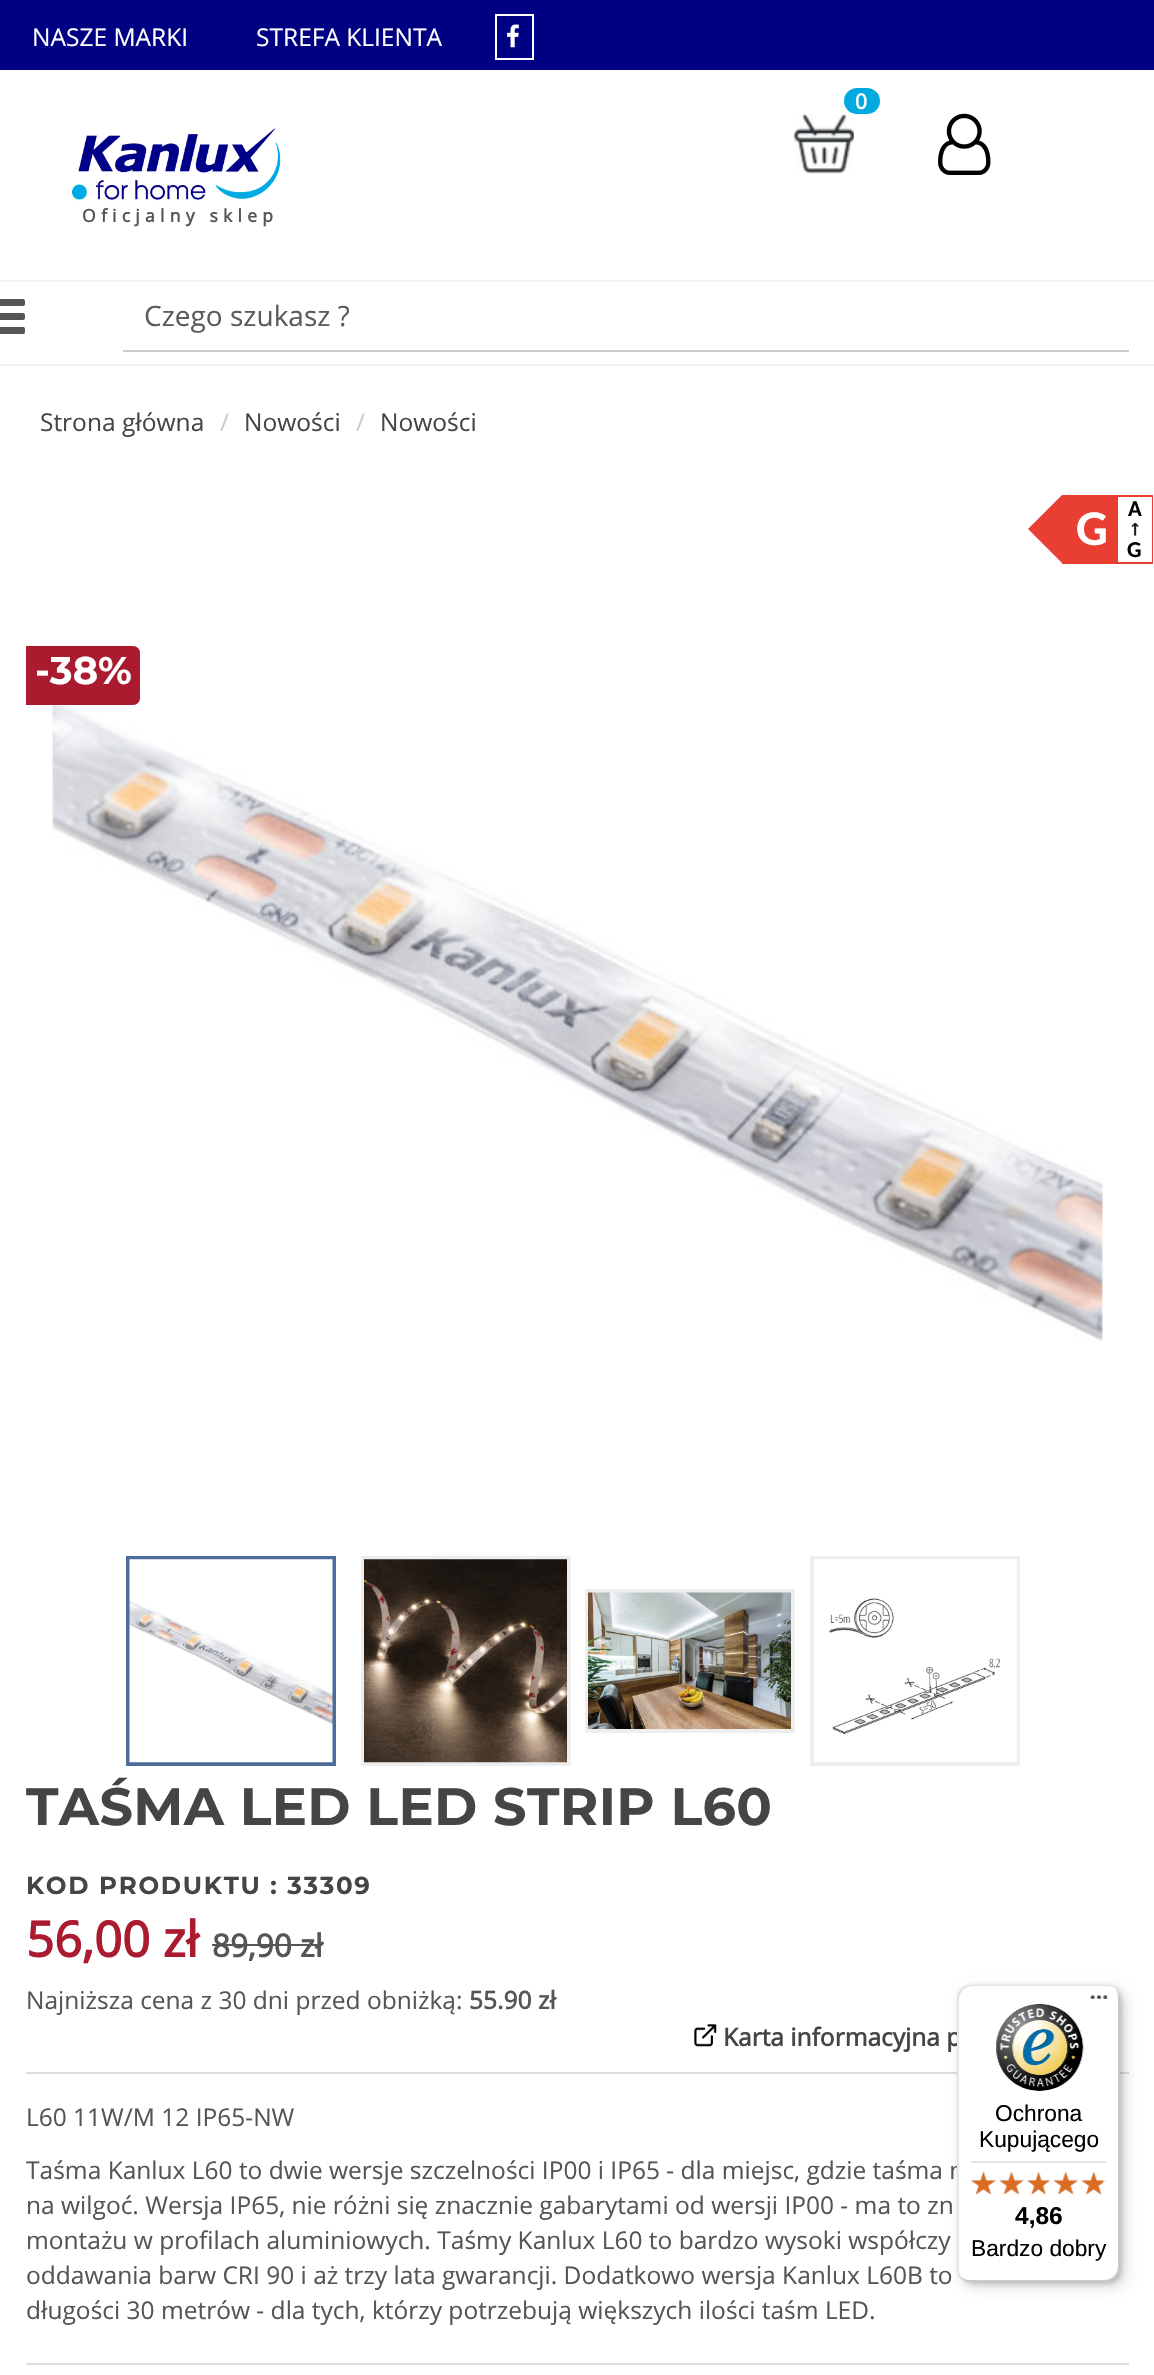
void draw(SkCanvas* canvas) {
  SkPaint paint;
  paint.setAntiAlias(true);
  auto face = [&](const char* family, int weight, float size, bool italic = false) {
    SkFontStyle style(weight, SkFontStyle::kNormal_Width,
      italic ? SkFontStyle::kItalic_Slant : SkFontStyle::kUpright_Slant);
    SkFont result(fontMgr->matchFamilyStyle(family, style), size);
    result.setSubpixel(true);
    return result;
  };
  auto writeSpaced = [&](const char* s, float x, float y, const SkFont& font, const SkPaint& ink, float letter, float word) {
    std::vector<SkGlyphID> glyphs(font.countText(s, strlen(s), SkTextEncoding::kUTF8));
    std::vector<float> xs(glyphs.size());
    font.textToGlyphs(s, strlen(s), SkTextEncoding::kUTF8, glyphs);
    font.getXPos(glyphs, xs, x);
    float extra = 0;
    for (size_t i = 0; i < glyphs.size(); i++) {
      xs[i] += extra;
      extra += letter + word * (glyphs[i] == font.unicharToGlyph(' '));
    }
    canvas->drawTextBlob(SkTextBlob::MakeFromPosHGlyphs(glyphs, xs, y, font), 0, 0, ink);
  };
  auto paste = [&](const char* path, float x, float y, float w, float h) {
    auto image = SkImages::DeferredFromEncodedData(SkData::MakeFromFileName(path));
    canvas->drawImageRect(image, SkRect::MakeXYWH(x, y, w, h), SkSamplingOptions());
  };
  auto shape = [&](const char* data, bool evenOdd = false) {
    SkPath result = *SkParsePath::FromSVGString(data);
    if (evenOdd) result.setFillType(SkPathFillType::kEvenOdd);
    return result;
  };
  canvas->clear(0xffffffff);
  paint.setColor(0xff000083);
  canvas->drawRect(SkRect::MakeXYWH(0, 0, 1154, 70), paint);
  paint.setStroke(true);
  paint.setStrokeWidth(2);
  paint.setColor(0xffffffff);
  canvas->drawRect(SkRect::MakeXYWH(496, 15, 37, 44), paint);
  paste("img/1.png", 507, 24, 12, 24);
  paste("img/2.png", 793, 113, 61, 61);
  paint.setStroke(false);
  paint.setColor(0xff00a9e0);
  canvas->drawRoundRect(SkRect::MakeXYWH(844, 88, 36, 26), 13, 13, paint);
  paste("img/3.png", 938, 113, 53, 62);
  paste("img/4.png", 70, 128, 211, 73);
  paint.setColor(0xfff3f3f3);
  canvas->drawRect(SkRect::MakeXYWH(0, 280, 1154, 2), paint);
  canvas->drawRect(SkRect::MakeXYWH(0, 364, 1154, 2), paint);
  paint.setColor(0xff555555);
  canvas->drawRoundRect(SkRect::MakeXYWH(-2, 299, 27, 7), 2, 2, paint);
  canvas->drawRoundRect(SkRect::MakeXYWH(-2, 313, 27, 7), 2, 2, paint);
  canvas->drawRoundRect(SkRect::MakeXYWH(-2, 327, 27, 7), 2, 2, paint);
  paint.setColor(0xffcccccc);
  canvas->drawRect(SkRect::MakeXYWH(123, 350, 1006, 2), paint);
  paint.setColor(0xffe93f33);
  canvas->drawRect(SkRect::MakeXYWH(1062, 495, 91, 69), paint);
  canvas->drawPath(shape("M1062 495V563L1028 529Z"), paint);
  paint.setColor(0xffffffff);
  canvas->drawRect(SkRect::MakeXYWH(1118, 497, 34, 65), paint);
  paste("img/5.png", 1131, 523, 8, 13);
  paste("img/6.png", 52, 699, 1051, 643);
  paint.setColor(0xffab1b2f);
  canvas->drawPath(shape("M26 646H133C137 646 140 649 140 653V698C140 702 137 705 133 705H26Z"), paint);
  paint.setStroke(true);
  paint.setStrokeWidth(4);
  paint.setColor(0xff4c6c99);
  canvas->drawRect(SkRect::MakeXYWH(128, 1558, 206, 206), paint);
  paste("img/7.png", 129, 1559, 204, 204);
  paint.setColor(0xffeeeeee);
  canvas->drawRect(SkRect::MakeXYWH(363, 1558, 206, 206), paint);
  paste("img/8.png", 364, 1559, 203, 204);
  canvas->drawRect(SkRect::MakeXYWH(587, 1591, 206, 140), paint);
  paste("img/9.png", 588, 1592, 203, 137);
  canvas->drawRect(SkRect::MakeXYWH(812, 1558, 206, 206), paint);
  paste("img/10.png", 813, 1559, 204, 204);
  paint.setStroke(false);
  paint.setColor(0xff555555);
  canvas->drawRect(SkRect::MakeXYWH(212, 1944, 110, 2), paint);
  paste("img/11.png", 694, 2024, 23, 23);
  paint.setColor(0xffdddddd);
  canvas->drawRect(SkRect::MakeXYWH(26, 2072, 1103, 2), paint);
  canvas->drawRect(SkRect::MakeXYWH(26, 2363, 1103, 2), paint);
  paint.setColor(0x26000000);
  paint.setMaskFilter(SkMaskFilter::MakeBlur(kNormal_SkBlurStyle, 7));
  canvas->drawRoundRect(SkRect::MakeXYWH(963, 1990, 162, 297), 14, 14, paint);
  paint.setMaskFilter(nullptr);
  paint.setMaskFilter(SkMaskFilter::MakeBlur(kNormal_SkBlurStyle, 2));
  canvas->drawRoundRect(SkRect::MakeXYWH(959, 1986, 163, 298), 14, 14, paint);
  paint.setMaskFilter(nullptr);
  auto f0 = face("Open Sans", 400, 24.5f);
  paint.setColor(0xffffffff);
  canvas->drawString("NASZE MARKI", 32, 46, f0, paint);
  canvas->drawString("STREFA KLIENTA", 256, 46, f0, paint);
  auto f1 = face("Open Sans", 700, 21);
  canvas->drawString("0", 855, 109, f1, paint);
  auto f2 = face("Open Sans", 700, 17.5f);
  paint.setColor(0xff555555);
  writeSpaced("Oficjalny sklep", 82, 222, f2, paint, 5.25f, 0);
  auto f3 = face("Open Sans", 400, 28);
  paint.setColor(0xff595c5f);
  canvas->drawString("Czego szukasz ?", 144, 326, f3, paint);
  paint.setColor(0xff454545);
  canvas->drawString("Strona główna", 40, 431, f0, paint);
  paint.setColor(0xffcccccc);
  canvas->drawString("/", 220, 431, f0, paint);
  paint.setColor(0xff454545);
  canvas->drawString("Nowości", 244, 431, f0, paint);
  paint.setColor(0xffcccccc);
  canvas->drawString("/", 356, 431, f0, paint);
  paint.setColor(0xff454545);
  canvas->drawString("Nowości", 380, 431, f0, paint);
  auto f4 = face("Carlito", 700, 50);
  paint.setColor(0xffffffff);
  canvas->drawString("G", 1076, 545, f4, paint);
  auto f5 = face("Carlito", 700, 22.75f);
  paint.setColor(0xff000000);
  canvas->drawString("A", 1128, 516, f5, paint);
  canvas->drawString("G", 1127, 557, f5, paint);
  auto f6 = face("Montserrat", 700, 38.5f);
  paint.setColor(0xffffffff);
  canvas->drawString("-38%", 35, 684, f6, paint);
  auto f7 = face("Montserrat", 700, 52.5f);
  paint.setColor(0xff454545);
  writeSpaced("TAŚMA LED LED STRIP L60", 26, 1825, f7, paint, 0.4f, 0);
  auto f8 = face("Montserrat", 700, 24.5f);
  writeSpaced("KOD PRODUKTU : 33309", 26, 1894, f8, paint, 1.75f, 0);
  auto f9 = face("Open Sans", 700, 49);
  paint.setColor(0xffab1b2f);
  canvas->drawString("56,00 zł", 26, 1957, f9, paint);
  auto f10 = face("Open Sans", 700, 31.5f);
  paint.setColor(0xff555555);
  canvas->drawString("89,90 zł", 212, 1957, f10, paint);
  canvas->drawString("Najniższa cena z 30 dni przed obniżką:", 26, 2009, f0, paint);
  auto f11 = face("Open Sans", 700, 24.5f);
  canvas->drawString("55.90 zł", 469, 2009, f11, paint);
  paint.setColor(0xff454545);
  canvas->drawString("Karta informacyjna p", 723, 2046, f11, paint);
  paint.setColor(0xff555555);
  {
    const struct { const char* s; float x, y; } items[] = {
      {"L60 11W/M 12 IP65-NW", 26, 2126},
      {"Taśma Kanlux L60 to dwie wersje szczelności IP00 i IP65 - dla miejsc, gdzie taśma n", 26, 2179},
      {"na wilgoć. Wersja IP65, nie różni się znacznie gabarytami od wersji IP00 - ma to zn", 26, 2214},
      {"montażu w profilach aluminiowych. Taśmy Kanlux L60 to bardzo wysoki współczy", 26, 2249},
      {"oddawania barw CRI 90 i aż trzy lata gwarancji. Dodatkowo wersja Kanlux L60B to", 26, 2284},
      {"długości 30 metrów - dla tych, którzy potrzebują większych ilości taśm LED.", 26, 2319},
    };
    for (auto [s, x, y] : items) {
      canvas->drawString(s, x, y, f0, paint);
    }
  }
  paint.setColor(0xffffffff);
  canvas->drawRoundRect(SkRect::MakeXYWH(957, 1985, 163, 297), 14, 14, paint);
  paint.setColor(0x1a000000);
  canvas->drawPath(shape("M973 1986H1108C1110 1986 1113 1987 1115 1988C1112 1986 1109 1985 1106 1985H971C963 1985 957 1991 957 1999V2268C957 2273 959 2277 963 2279C960 2277 959 2273 959 2270V2000C959 1993 965 1986 973 1986Z"), paint);
  paint.setColor(0x33000000);
  canvas->drawPath(shape("M958 2274C961 2279 965 2282 971 2282H1106C1114 2282 1120 2276 1120 2268V1999C1120 1995 1118 1991 1115 1989C1117 1991 1118 1994 1118 1997V2266C1118 2274 1112 2280 1104 2280H970C965 2280 961 2278 958 2274Z"), paint);
  paint.setColor(0x33323232);
  canvas->drawPath(shape("M962 2278C964 2281 967 2282 971 2282H1106C1114 2282 1120 2276 1120 2268V1999C1120 1996 1119 1993 1118 1991C1119 1993 1119 1995 1119 1997V2267C1119 2275 1113 2281 1105 2281H970C967 2281 964 2280 962 2278Z"), paint);
  paint.setColor(0x4dffffff);
  canvas->drawPath(shape("M960 2277C962 2280 966 2282 971 2282H1106C1114 2282 1120 2276 1120 2268V1999C1120 1995 1119 1992 1116 1990C1118 1992 1119 1995 1119 1998V2267C1119 2275 1113 2281 1105 2281H970C966 2281 963 2279 960 2277Z"), paint);
  paste("img/12.png", 1090, 1995, 18, 4);
  paste("img/13.png", 996, 2004, 88, 87);
  auto f12 = face("Liberation Sans", 400, 22.75f);
  paint.setColor(0xff000000);
  canvas->drawString("Ochrona", 995, 2121, f12, paint);
  canvas->drawString("Kupującego", 979, 2147, f12, paint);
  paint.setColor(0xffe5e5e5);
  canvas->drawRect(SkRect::MakeXYWH(971, 2161, 135, 2), paint);
  paste("img/19.png", 971, 2172, 25, 22);
  paste("img/14.png", 971, 2171, 25, 24);
  paste("img/20.png", 1000, 2172, 23, 22);
  paste("img/15.png", 999, 2171, 25, 24);
  paste("img/21.png", 1027, 2172, 23, 22);
  paste("img/16.png", 1027, 2171, 23, 24);
  paste("img/22.png", 1054, 2172, 24, 22);
  paste("img/17.png", 1053, 2171, 25, 24);
  paste("img/23.png", 1082, 2172, 24, 22);
  paste("img/18.png", 1081, 2171, 22, 24);
  auto f13 = face("Liberation Sans", 700, 24.5f);
  paint.setColor(0xff000000);
  canvas->drawString("4,86", 1015, 2224, f13, paint);
  canvas->drawString("Bardzo dobry", 971, 2256, f12, paint);
}
